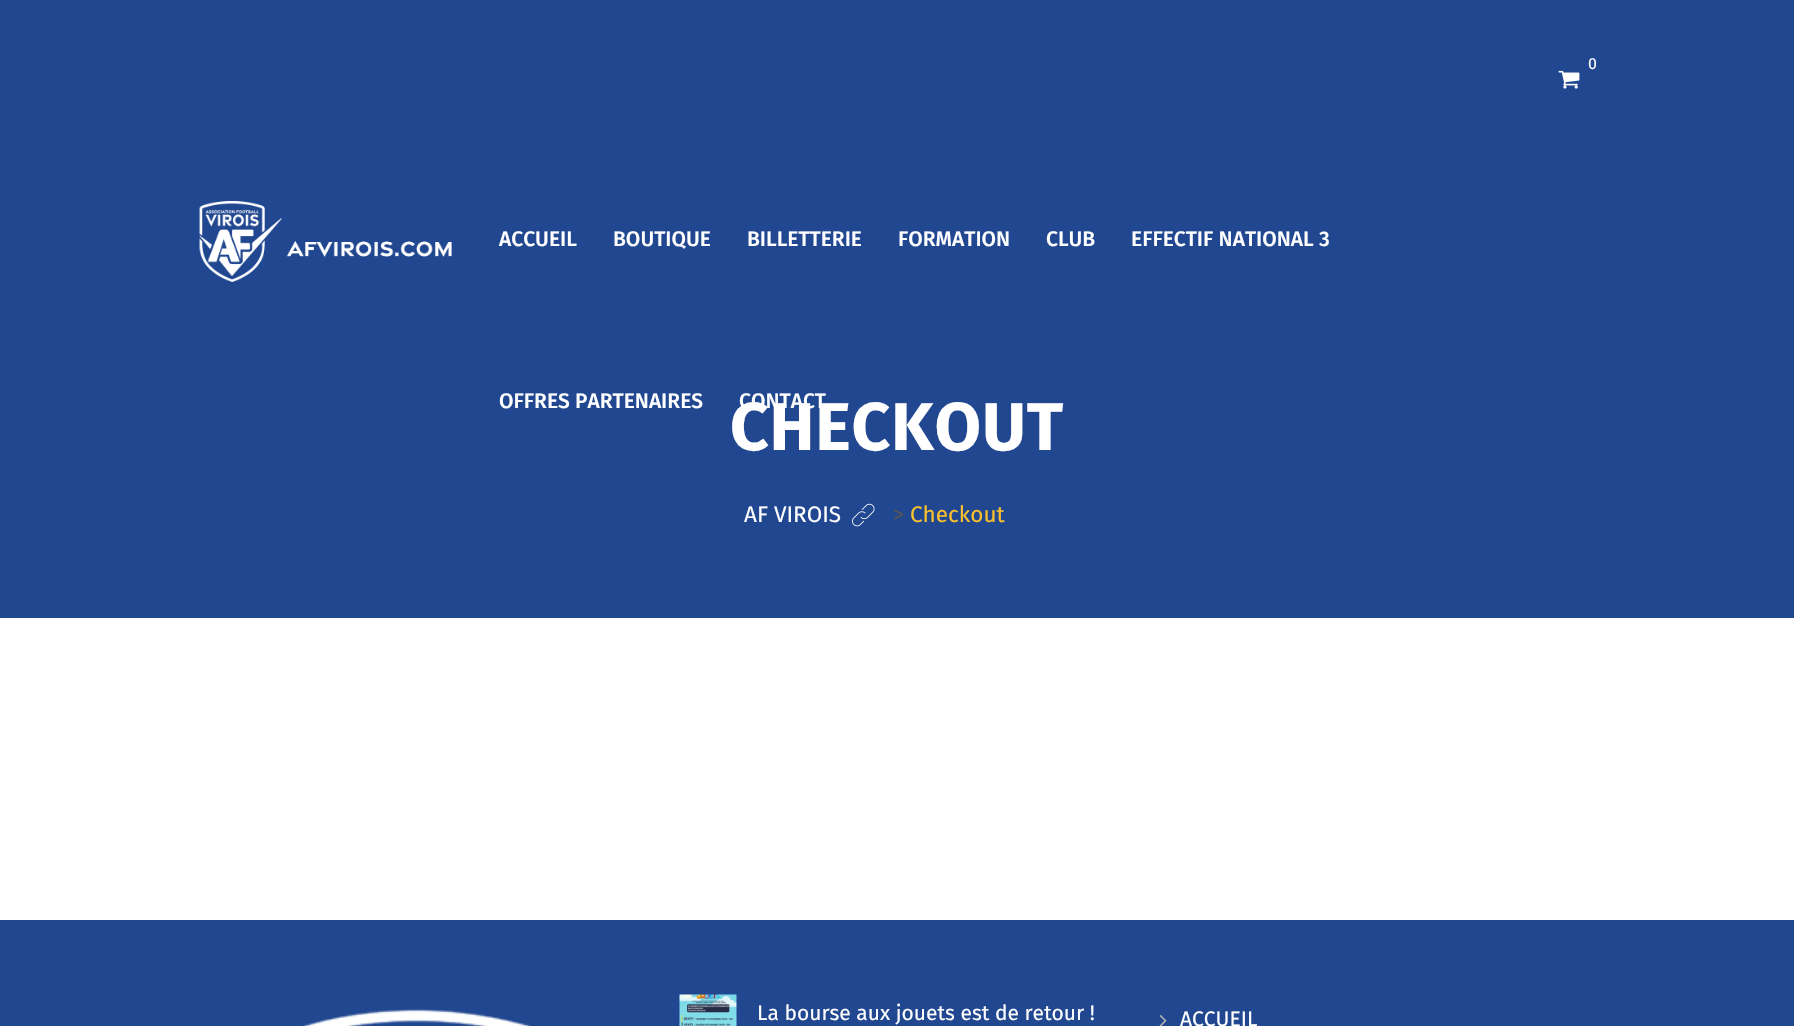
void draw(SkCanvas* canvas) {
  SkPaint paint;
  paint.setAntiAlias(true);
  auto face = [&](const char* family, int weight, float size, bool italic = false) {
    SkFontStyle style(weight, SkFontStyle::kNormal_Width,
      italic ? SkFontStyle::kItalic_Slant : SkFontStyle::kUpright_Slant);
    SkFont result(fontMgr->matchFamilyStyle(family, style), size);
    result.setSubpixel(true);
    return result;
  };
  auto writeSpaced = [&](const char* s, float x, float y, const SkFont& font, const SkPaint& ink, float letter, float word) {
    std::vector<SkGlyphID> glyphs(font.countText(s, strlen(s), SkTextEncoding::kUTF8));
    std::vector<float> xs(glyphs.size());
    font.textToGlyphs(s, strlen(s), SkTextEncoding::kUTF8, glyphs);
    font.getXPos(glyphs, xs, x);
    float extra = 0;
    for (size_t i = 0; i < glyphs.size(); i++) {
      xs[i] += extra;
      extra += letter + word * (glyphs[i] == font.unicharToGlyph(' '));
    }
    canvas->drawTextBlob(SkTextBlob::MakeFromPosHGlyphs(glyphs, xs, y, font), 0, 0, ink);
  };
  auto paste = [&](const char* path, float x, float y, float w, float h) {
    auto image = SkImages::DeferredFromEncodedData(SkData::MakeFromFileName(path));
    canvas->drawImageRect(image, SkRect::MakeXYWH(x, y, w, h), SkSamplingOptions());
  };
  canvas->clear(0xffffffff);
  paint.setColor(0xff214790);
  canvas->drawRect(SkRect::MakeXYWH(0, 0, 1794, 618), paint);
  paste("img/1.png", 199, 201, 253, 81);
  paste("img/2.png", 1558, 70, 22, 19);
  paste("img/3.png", 852, 503, 23, 24);
  canvas->drawRect(SkRect::MakeXYWH(0, 920, 1794, 106), paint);
  paste("img/4.png", 303, 1009, 228, 17);
  paste("img/5.png", 679, 994, 58, 32);
  paste("img/6.png", 1159, 1015, 8, 11);
  auto f0 = face("Fira Sans", 400, 16);
  paint.setColor(0xffffffff);
  canvas->drawString("0", 1588, 69, f0, paint);
  auto f1 = face("Fira Sans", 500, 21);
  {
    const struct { const char* s; float x, y; } items[] = {
      {"ACCUEIL", 499, 246},
      {"BOUTIQUE", 613, 246},
      {"BILLETTERIE", 747, 246},
      {"FORMATION", 898, 246},
      {"CLUB", 1046, 246},
      {"EFFECTIF NATIONAL 3", 1131, 246},
      {"OFFRES PARTENAIRES", 499, 408},
    };
    for (auto [s, x, y] : items) {
      canvas->drawString(s, x, y, f1, paint);
    }
  }
  auto f2 = face("Fira Sans", 700, 67.5f);
  writeSpaced("CHECKOUT", 730, 450, f2, paint, 0.75f, 0);
  canvas->drawString("CONTACT", 739, 408, f1, paint);
  auto f3 = face("Fira Sans", 400, 22.5f);
  canvas->drawString("AF VIROIS", 744, 522, f3, paint);
  paint.setColor(0xff555555);
  canvas->drawString(">", 893, 522, f3, paint);
  paint.setColor(0xfffbc02d);
  canvas->drawString("Checkout", 910, 522, f3, paint);
  auto f4 = face("Fira Sans", 400, 21);
  paint.setColor(0xffffffff);
  canvas->drawString("La bourse aux jouets est de retour !", 757, 1020, f4, paint);
  canvas->drawString("ACCUEIL", 1180, 1026, f4, paint);
}
